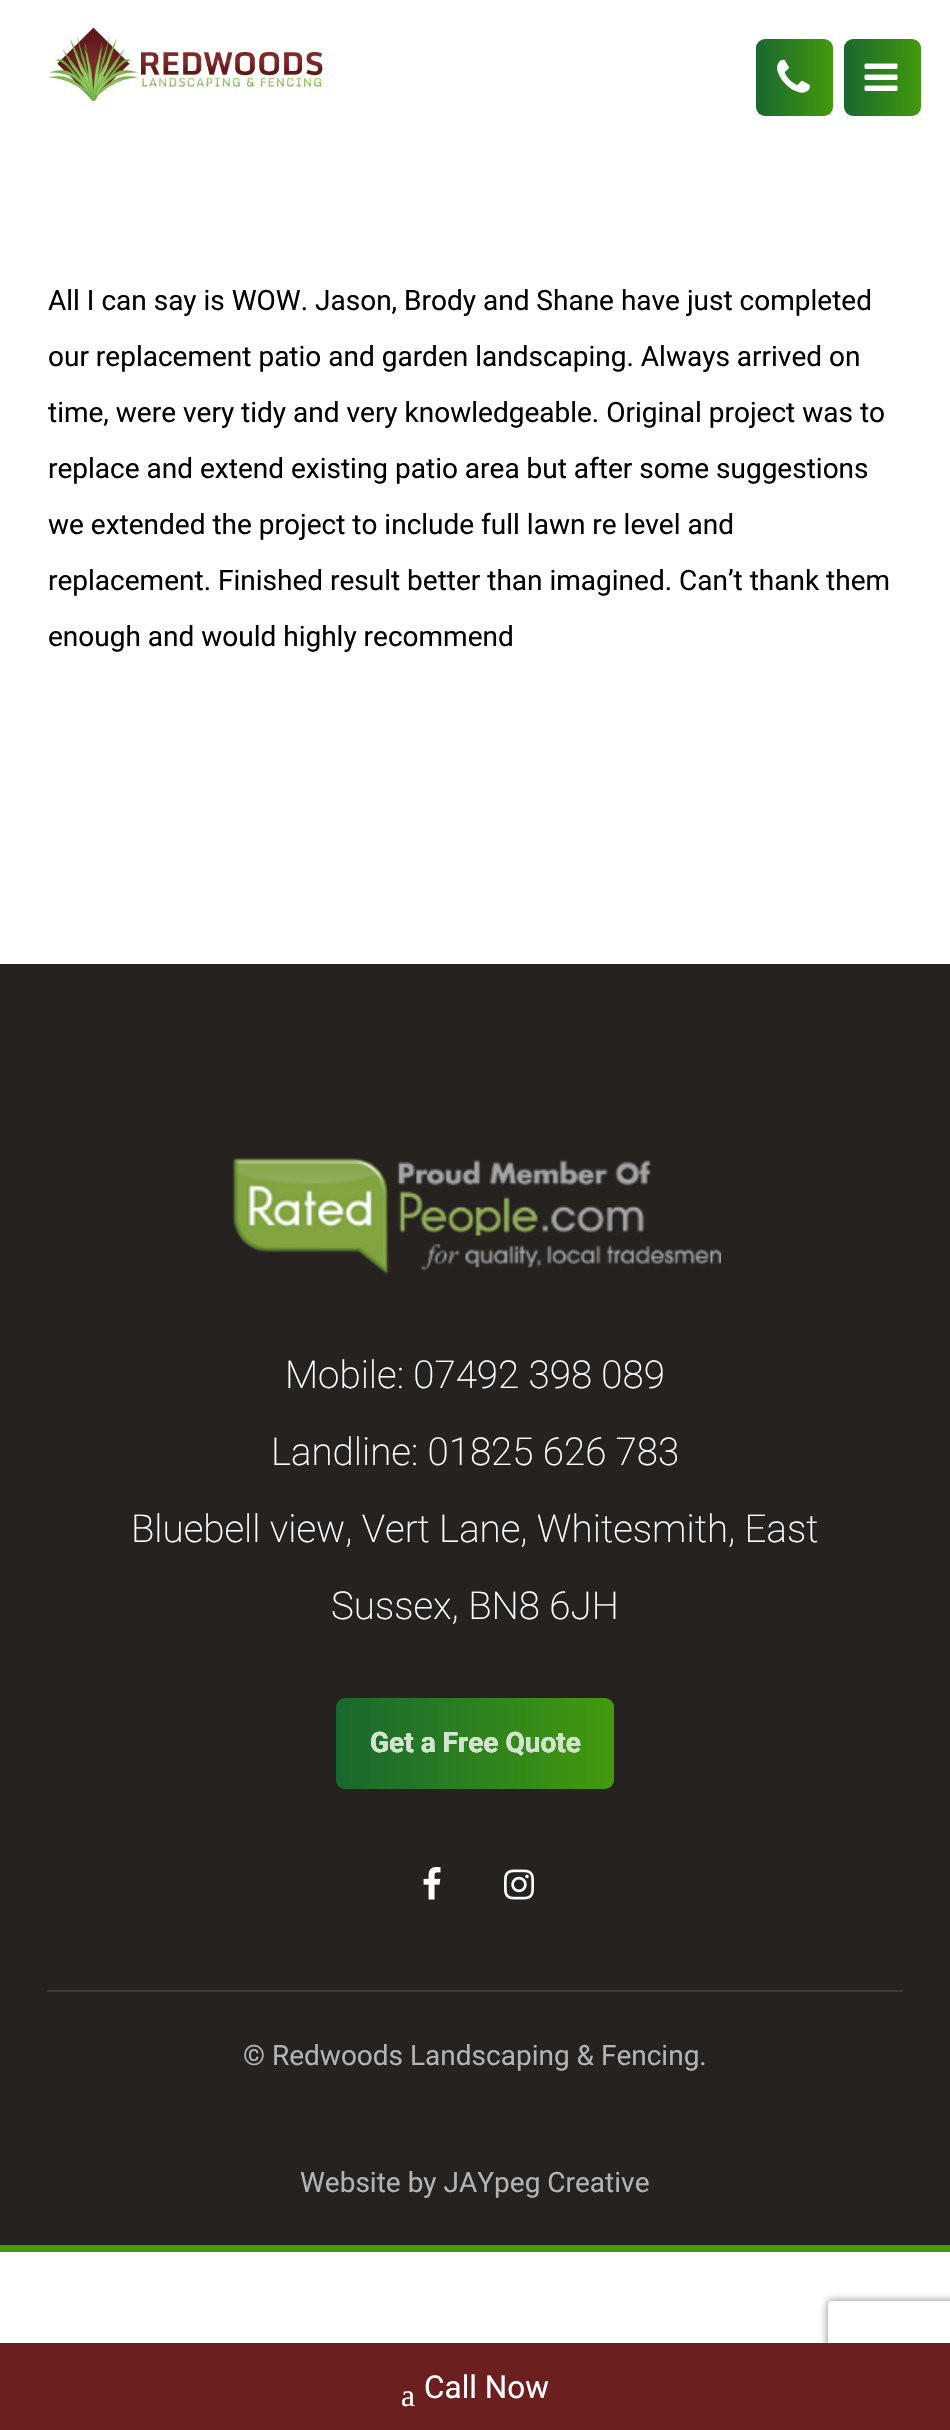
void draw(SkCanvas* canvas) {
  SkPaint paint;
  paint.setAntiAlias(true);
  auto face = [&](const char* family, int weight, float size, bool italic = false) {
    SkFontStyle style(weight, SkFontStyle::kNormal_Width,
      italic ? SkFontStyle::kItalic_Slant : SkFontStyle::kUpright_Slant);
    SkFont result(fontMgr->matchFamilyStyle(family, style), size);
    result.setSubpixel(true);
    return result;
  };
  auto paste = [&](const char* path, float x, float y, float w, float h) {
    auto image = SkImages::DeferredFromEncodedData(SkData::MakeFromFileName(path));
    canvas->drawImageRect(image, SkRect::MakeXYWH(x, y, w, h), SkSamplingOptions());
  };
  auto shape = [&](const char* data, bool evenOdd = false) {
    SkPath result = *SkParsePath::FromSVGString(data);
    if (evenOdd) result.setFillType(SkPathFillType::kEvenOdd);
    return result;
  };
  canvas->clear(0xffffffff);
  paste("img/1.png", 48, 27, 275, 74);
  {
    const SkColor colors[] = {0xff196730, 0xff439a0d};
    const float stops[] = {0, 1};
    const SkPoint ends[] = {{756, 77}, {833, 77}};
    paint.setShader(SkGradientShader::MakeLinear(ends, colors, stops, 2, SkTileMode::kClamp));
    paint.setAlpha(255);
  }
  canvas->drawRoundRect(SkRect::MakeXYWH(756, 39, 77, 77), 9, 9, paint);
  paste("img/2.png", 777, 59, 33, 34);
  {
    const SkColor colors[] = {0xff196730, 0xff439a0d};
    const float stops[] = {0, 1};
    const SkPoint ends[] = {{844, 77}, {921, 77}};
    paint.setShader(SkGradientShader::MakeLinear(ends, colors, stops, 2, SkTileMode::kClamp));
    paint.setAlpha(255);
  }
  canvas->drawRoundRect(SkRect::MakeXYWH(844, 39, 77, 77), 9, 9, paint);
  paste("img/3.png", 864, 63, 34, 28);
  paint.setShader(nullptr);
  paint.setColor(0xff252220);
  canvas->drawRect(SkRect::MakeXYWH(0, 964, 950, 1281), paint);
  paint.setColor(0xff439a0d);
  canvas->drawRect(SkRect::MakeXYWH(0, 2245, 950, 7), paint);
  paste("img/4.png", 232, 1158, 489, 117);
  {
    const SkColor colors[] = {0xff196730, 0xff439a0d};
    const float stops[] = {0, 1};
    const SkPoint ends[] = {{336, 1743}, {614, 1743}};
    paint.setShader(SkGradientShader::MakeLinear(ends, colors, stops, 2, SkTileMode::kClamp));
    paint.setAlpha(255);
  }
  canvas->drawRoundRect(SkRect::MakeXYWH(336, 1698, 278, 91), 9, 9, paint);
  paste("img/5.png", 423, 1867, 18, 33);
  paste("img/6.png", 504, 1869, 30, 31);
  paint.setShader(nullptr);
  paint.setColor(0xff3b3836);
  canvas->drawRect(SkRect::MakeXYWH(47, 1990, 856, 2), paint);
  canvas->save();
  canvas->clipPath(shape("M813 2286H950V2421H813ZM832 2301H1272C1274 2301 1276 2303 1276 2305V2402C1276 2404 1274 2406 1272 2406H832C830 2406 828 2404 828 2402V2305C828 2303 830 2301 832 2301Z", true), true);
  paint.setColor(0xff808080);
  paint.setMaskFilter(SkMaskFilter::MakeBlur(kNormal_SkBlurStyle, 4.5f));
  canvas->drawRoundRect(SkRect::MakeXYWH(828, 2301, 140, 105), 4, 4, paint);
  paint.setMaskFilter(nullptr);
  canvas->restore();
  paint.setColor(0xff6b1f1f);
  canvas->drawRect(SkRect::MakeXYWH(0, 2343, 950, 87), paint);
  auto f0 = face("Roboto", 400, 28);
  paint.setColor(0xff000000);
  {
    const struct { const char* s; float x, y; } items[] = {
      {"All I can say is WOW. Jason, Brody and Shane have just completed", 48, 310},
      {"our replacement patio and garden landscaping. Always arrived on", 48, 366},
      {"time, were very tidy and very knowledgeable. Original project was to", 48, 422},
      {"replace and extend existing patio area but after some suggestions", 48, 478},
      {"we extended the project to include full lawn re level and", 48, 534},
      {"replacement. Finished result better than imagined. Can’t thank them", 48, 590},
      {"enough and would highly recommend", 48, 646},
    };
    for (auto [s, x, y] : items) {
      canvas->drawString(s, x, y, f0, paint);
    }
  }
  auto f1 = face("Roboto", 200, 38.5f);
  paint.setColor(0xffffffff);
  {
    const struct { const char* s; float x, y; } items[] = {
      {"Mobile: 07492 398 089", 285, 1388},
      {"Landline: 01825 626 783", 271, 1465},
      {"Bluebell view, Vert Lane, Whitesmith, East", 131, 1542},
      {"Sussex, BN8 6JH", 331, 1619},
    };
    for (auto [s, x, y] : items) {
      canvas->drawString(s, x, y, f1, paint);
    }
  }
  auto f2 = face("Roboto", 700, 28);
  canvas->drawString("Get a Free Quote", 370, 1752, f2, paint);
  paint.setColor(0xffd2e4ce);
  canvas->drawString("Get a Free Quote", 370, 1752, f2, paint);
  paint.setColor(0xffb3b3b3);
  canvas->drawString("© Redwoods Landscaping & Fencing.", 243, 2065, f0, paint);
  canvas->drawString("Website by JAYpeg Creative", 300, 2192, f0, paint);
  auto f3 = face("Liberation Serif", 400, 31.5f);
  paint.setColor(0xffffffff);
  canvas->drawString("a", 401, 2406, f3, paint);
  auto f4 = face("Roboto", 400, 31.5f);
  canvas->drawString("Call Now", 424, 2398, f4, paint);
}
